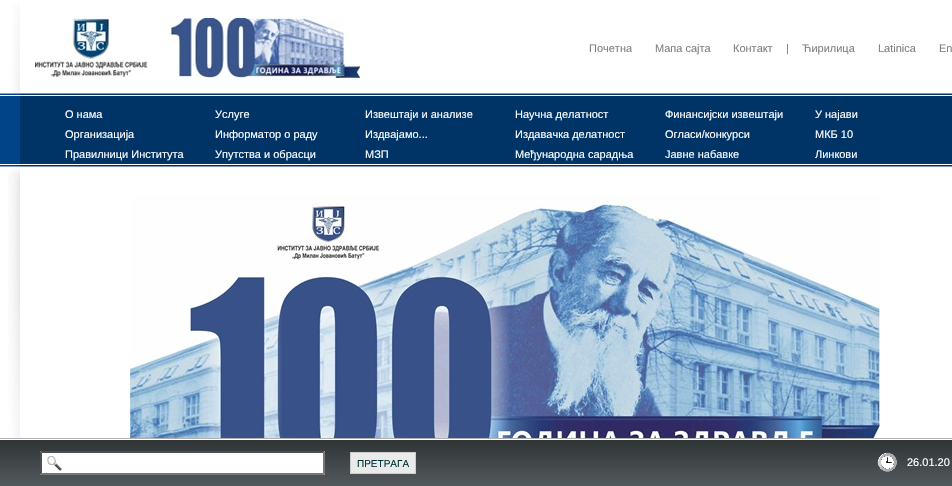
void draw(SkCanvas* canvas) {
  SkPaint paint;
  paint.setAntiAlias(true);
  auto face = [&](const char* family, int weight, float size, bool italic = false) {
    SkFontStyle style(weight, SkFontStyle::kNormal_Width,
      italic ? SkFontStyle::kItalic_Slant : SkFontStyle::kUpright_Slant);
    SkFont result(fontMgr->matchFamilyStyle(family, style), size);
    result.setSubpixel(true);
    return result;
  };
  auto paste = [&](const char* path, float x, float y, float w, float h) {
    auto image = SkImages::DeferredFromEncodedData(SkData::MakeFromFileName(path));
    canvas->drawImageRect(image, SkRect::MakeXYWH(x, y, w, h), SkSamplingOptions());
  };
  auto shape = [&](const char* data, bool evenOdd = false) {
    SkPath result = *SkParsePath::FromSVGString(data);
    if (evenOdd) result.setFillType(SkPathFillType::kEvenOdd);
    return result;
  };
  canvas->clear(0xffffffff);
  paste("img/1.png", 12, 3, 8, 90);
  paste("img/2.png", 35, 18, 325, 60);
  paste("img/3.png", 0, 93, 20, 74);
  paste("img/4.png", 20, 93, 932, 74);
  paste("img/5.png", 8, 168, 12, 270);
  paste("img/6.png", 130, 195, 750, 243);
  paste("img/7.png", 0, 438, 952, 48);
  paint.setColor(0xffffffff);
  canvas->drawRect(SkRect::MakeXYWH(40, 451, 285, 24), paint);
  paste("img/8.png", 47, 456, 15, 15);
  paint.setColor(0xff4f4f4f);
  canvas->drawPath(shape("M40 451H325L323 453H42Z"), paint);
  paint.setColor(0xff767676);
  canvas->drawPath(shape("M325 451V475L323 473V453Z"), paint);
  canvas->drawPath(shape("M325 475H40L42 473H323Z"), paint);
  paint.setColor(0xff4f4f4f);
  canvas->drawPath(shape("M40 475V451L42 453V473Z"), paint);
  paint.setColor(0xffeaeaea);
  canvas->drawRect(SkRect::MakeXYWH(350.5f, 452.5f, 65, 21), paint);
  paint.setStroke(true);
  paint.setStrokeWidth(1);
  paint.setColor(0xffcccccc);
  canvas->drawRect(SkRect::MakeXYWH(350.5f, 452.5f, 65, 21), paint);
  paste("img/9.png", 877, 452, 20, 20);
  auto f0 = face("Liberation Sans", 400, 11);
  paint.setStroke(false);
  paint.setColor(0xff808080);
  {
    const struct { const char* s; float x, y; } items[] = {
      {"Почетна", 589, 52},
      {"Мапа сајта", 655, 52},
      {"Контакт", 733, 52},
      {"|", 786, 52},
      {"Ћирилица", 802, 52},
      {"Latinica", 878, 52},
      {"En", 939, 52},
    };
    for (auto [s, x, y] : items) {
      canvas->drawString(s, x, y, f0, paint);
    }
  }
  paint.setColor(0xffffffff);
  {
    const struct { const char* s; float x, y; } items[] = {
      {"О нама", 65, 118},
      {"Услуге", 215, 118},
      {"Извештаји и анализе", 365, 118},
      {"Научна делатност", 515, 118},
      {"Финансијски извештаји", 665, 118},
      {"У најави", 815, 118},
      {"Организација", 65, 138},
      {"Информатор о раду", 215, 138},
      {"Издвајамо...", 365, 138},
      {"Издавачка делатност", 515, 138},
      {"Огласи/конкурси", 665, 138},
      {"МКБ 10", 815, 138},
      {"Правилници Института", 65, 158},
      {"Упутства и обрасци", 215, 158},
      {"МЗП", 365, 158},
      {"Међународна сарадња", 515, 158},
      {"Јавне набавке", 665, 158},
      {"Линкови", 815, 158},
    };
    for (auto [s, x, y] : items) {
      canvas->drawString(s, x, y, f0, paint);
    }
  }
  auto f1 = face("Liberation Sans", 400, 10);
  paint.setColor(0xff003333);
  canvas->drawString("ПРЕТРАГА", 357, 467, f1, paint);
  paint.setColor(0xffffffff);
  canvas->drawString("26.01.20", 907, 466, f0, paint);
}
